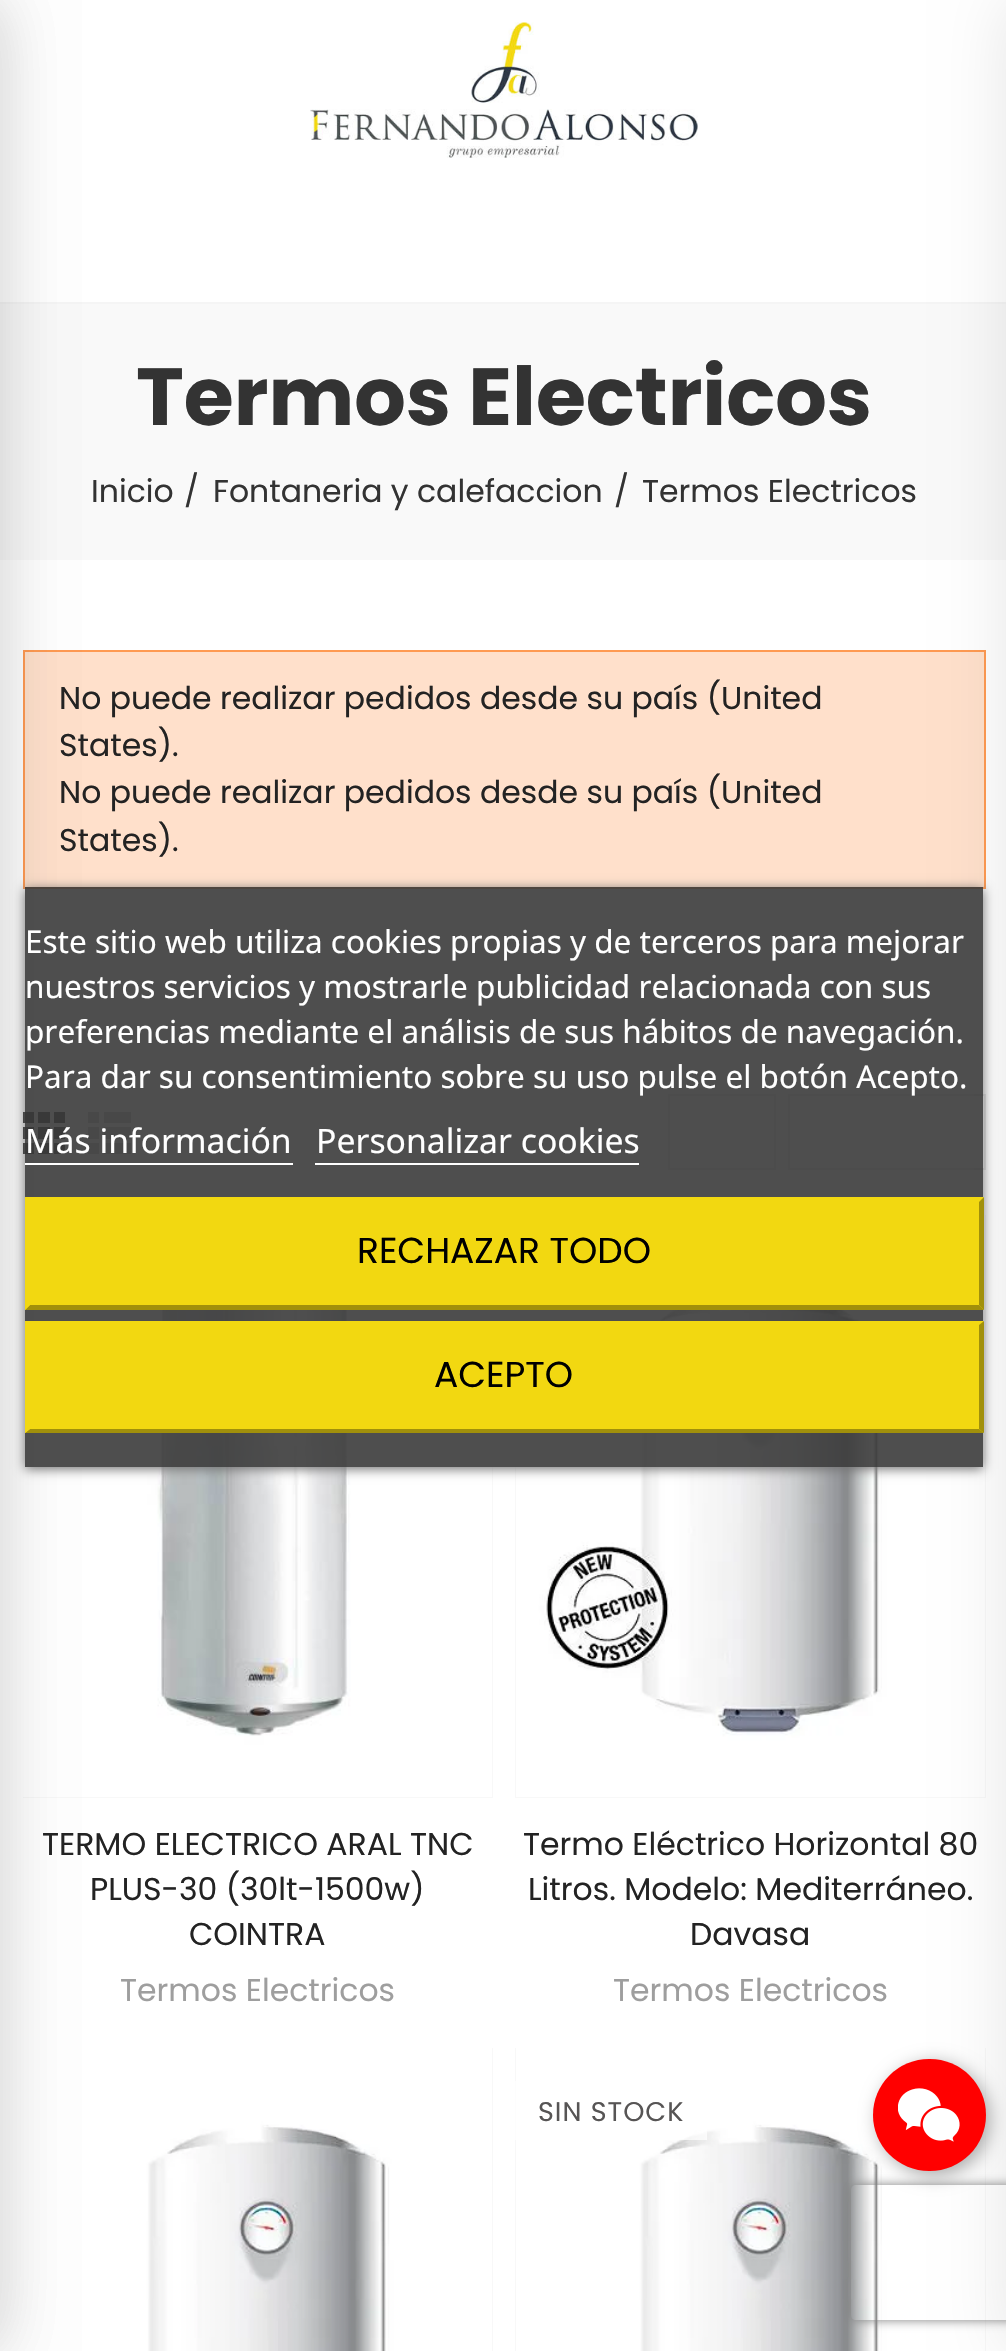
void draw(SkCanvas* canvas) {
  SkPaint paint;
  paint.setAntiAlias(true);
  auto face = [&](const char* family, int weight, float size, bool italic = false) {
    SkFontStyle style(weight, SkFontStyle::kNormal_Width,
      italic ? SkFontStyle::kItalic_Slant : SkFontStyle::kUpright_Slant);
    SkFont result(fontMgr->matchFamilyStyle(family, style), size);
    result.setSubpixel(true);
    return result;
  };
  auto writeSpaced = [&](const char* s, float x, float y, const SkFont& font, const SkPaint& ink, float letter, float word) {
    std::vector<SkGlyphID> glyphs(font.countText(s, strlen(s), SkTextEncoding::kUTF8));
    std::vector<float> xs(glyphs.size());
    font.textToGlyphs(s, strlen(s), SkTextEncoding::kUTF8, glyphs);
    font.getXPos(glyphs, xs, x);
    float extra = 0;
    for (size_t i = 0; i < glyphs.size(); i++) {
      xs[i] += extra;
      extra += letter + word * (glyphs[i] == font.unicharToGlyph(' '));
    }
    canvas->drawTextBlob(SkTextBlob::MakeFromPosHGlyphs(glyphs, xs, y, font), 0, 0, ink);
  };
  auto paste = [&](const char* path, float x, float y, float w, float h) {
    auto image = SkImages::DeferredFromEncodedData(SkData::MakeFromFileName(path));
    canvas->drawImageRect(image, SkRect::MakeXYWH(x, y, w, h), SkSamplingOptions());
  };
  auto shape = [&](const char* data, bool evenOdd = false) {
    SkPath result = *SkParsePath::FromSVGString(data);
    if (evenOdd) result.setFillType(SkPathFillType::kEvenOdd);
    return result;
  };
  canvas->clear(0xffffffff);
  paint.setColor(0xfff5f5f5);
  canvas->drawRect(SkRect::MakeXYWH(0, 302, 1006, 2), paint);
  paint.setColor(0xfff9f9f9);
  canvas->drawRect(SkRect::MakeXYWH(0, 304, 1006, 256), paint);
  paint.setColor(0xffffe0cb);
  canvas->drawRect(SkRect::MakeXYWH(24, 651, 961, 237), paint);
  paint.setStroke(true);
  paint.setStrokeWidth(2);
  paint.setColor(0xffff9a52);
  canvas->drawRect(SkRect::MakeXYWH(24, 651, 961, 237), paint);
  paste("img/2.png", 23, 1112, 42, 42);
  paint.setStroke(false);
  {
    const struct { float x, y, w, h; SkColor color; } items[] = {
      {88, 1112, 11, 11, 0xffbfbfbf},
      {88, 1127, 11, 12, 0xffbfbfbf},
      {88, 1143, 11, 11, 0xffbfbfbf},
      {23, 1310, 470, 488, 0xfff8f8f8},
    };
    for (auto [x, y, w, h, color] : items) {
      paint.setColor(color);
      canvas->drawRect(SkRect::MakeXYWH(x, y, w, h), paint);
    }
  }
  paste("img/3.png", 23, 1215, 469, 582);
  paste("img/5.png", 23, 2048, 469, 303);
  paint.setColor(0x1a000000);
  paint.setMaskFilter(SkMaskFilter::MakeBlur(kNormal_SkBlurStyle, 34));
  canvas->drawRect(SkRect::MakeXYWH(-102, 0, 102, 2351), paint);
  paint.setMaskFilter(nullptr);
  paint.setMaskFilter(SkMaskFilter::MakeBlur(kNormal_SkBlurStyle, 34));
  canvas->drawRect(SkRect::MakeXYWH(-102, 0, 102, 2351), paint);
  paint.setMaskFilter(nullptr);
  paint.setStroke(true);
  paint.setColor(0xffe6e6e6);
  canvas->drawRect(SkRect::MakeXYWH(789, 1095, 196, 74), paint);
  paint.setStroke(false);
  paint.setColor(0xfff8f8f8);
  canvas->drawRect(SkRect::MakeXYWH(515, 1215, 471, 583), paint);
  paste("img/4.png", 516, 1215, 469, 582);
  canvas->drawRect(SkRect::MakeXYWH(515, 2048, 471, 303), paint);
  paste("img/6.png", 516, 2048, 469, 303);
  paint.setColor(0x1a000000);
  paint.setMaskFilter(SkMaskFilter::MakeBlur(kNormal_SkBlurStyle, 34));
  canvas->drawRect(SkRect::MakeXYWH(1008, 0, 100, 2351), paint);
  paint.setMaskFilter(nullptr);
  paste("img/1.png", 310, 22, 388, 136);
  {
    const struct { float x, y, w, h; SkColor color; } items[] = {
      {104, 1112, 27, 11, 0xffbfbfbf},
      {104, 1127, 27, 12, 0xffbfbfbf},
      {104, 1143, 27, 11, 0xffbfbfbf},
    };
    for (auto [x, y, w, h, color] : items) {
      paint.setColor(color);
      canvas->drawRect(SkRect::MakeXYWH(x, y, w, h), paint);
    }
  }
  paint.setStroke(true);
  paint.setColor(0xffe6e6e6);
  canvas->drawRect(SkRect::MakeXYWH(669, 1095, 106, 74), paint);
  paint.setStroke(false);
  paint.setColor(0xfff8f8f8);
  canvas->drawRect(SkRect::MakeXYWH(492, 2048, 1, 303), paint);
  paint.setColor(0xb8ffffff);
  canvas->drawRect(SkRect::MakeXYWH(515, 2081, 192, 59), paint);
  canvas->save();
  canvas->clipPath(shape("M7 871H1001V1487H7ZM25 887H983V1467H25Z", true), true);
  paint.setColor(0xff707070);
  paint.setMaskFilter(SkMaskFilter::MakeBlur(kNormal_SkBlurStyle, 5.5f));
  canvas->drawRect(SkRect::MakeXYWH(25, 889, 958, 580), paint);
  paint.setMaskFilter(nullptr);
  canvas->restore();
  {
    const struct { float x, y, w, h; SkColor color; } items[] = {
      {25, 887, 958, 580, 0xe63b3b3b},
      {25, 1163, 268, 2, 0xffffffff},
      {315, 1163, 324, 2, 0xffffffff},
      {25, 1197, 958, 113, 0xfff2d811},
    };
    for (auto [x, y, w, h, color] : items) {
      paint.setColor(color);
      canvas->drawRect(SkRect::MakeXYWH(x, y, w, h), paint);
    }
  }
  canvas->drawPath(shape("M25 1197H984L979 1202H30Z"), paint);
  paint.setColor(0xffa1900b);
  canvas->drawPath(shape("M984 1197V1310L979 1305V1202Z"), paint);
  canvas->drawPath(shape("M984 1310H25L30 1305H979Z"), paint);
  paint.setColor(0xfff2d811);
  canvas->drawPath(shape("M25 1310V1197L30 1202V1305Z"), paint);
  canvas->drawRect(SkRect::MakeXYWH(25, 1321, 958, 112), paint);
  canvas->drawPath(shape("M25 1321H984L979 1325H30Z"), paint);
  paint.setColor(0xffa1900b);
  canvas->drawPath(shape("M984 1321V1433L979 1429V1325Z"), paint);
  canvas->drawPath(shape("M984 1433H25L30 1429H979Z"), paint);
  paint.setColor(0xfff2d811);
  canvas->drawPath(shape("M25 1433V1321L30 1325V1429Z"), paint);
  paint.setColor(0xffaaaaaa);
  paint.setMaskFilter(SkMaskFilter::MakeBlur(kNormal_SkBlurStyle, 9));
  canvas->drawRoundRect(SkRect::MakeXYWH(878, 2063, 112, 113), 56, 56, paint);
  paint.setMaskFilter(nullptr);
  canvas->save();
  canvas->clipPath(shape("M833 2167H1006V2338H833ZM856 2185H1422C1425 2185 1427 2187 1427 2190V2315C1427 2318 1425 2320 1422 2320H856C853 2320 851 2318 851 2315V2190C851 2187 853 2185 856 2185Z", true), true);
  paint.setColor(0xff808080);
  paint.setMaskFilter(SkMaskFilter::MakeBlur(kNormal_SkBlurStyle, 5.5f));
  canvas->drawRoundRect(SkRect::MakeXYWH(851, 2185, 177, 135), 5, 5, paint);
  paint.setMaskFilter(nullptr);
  canvas->restore();
  paint.setColor(0xffff0000);
  canvas->drawRoundRect(SkRect::MakeXYWH(873, 2059, 113, 112), 56, 56, paint);
  paste("img/7.png", 898, 2088, 62, 54);
  auto f0 = face("Poppins", 700, 81);
  paint.setColor(0xff333333);
  canvas->drawString("Termos Electricos", 136, 425, f0, paint);
  auto f1 = face("Poppins", 400, 31.5f);
  {
    const struct { const char* s; float x, y; } items[] = {
      {"Inicio", 91, 502},
      {"/", 184, 502},
      {"Fontaneria y calefaccion", 213, 502},
      {"/", 614, 502},
      {"Termos Electricos", 642, 502},
    };
    for (auto [s, x, y] : items) {
      canvas->drawString(s, x, y, f1, paint);
    }
  }
  paint.setColor(0xff232323);
  {
    const struct { const char* s; float x, y; } items[] = {
      {"No puede realizar pedidos desde su país (United", 59, 709},
      {"States).", 59, 756},
      {"No puede realizar pedidos desde su país (United", 59, 803},
      {"States).", 59, 851},
      {"TERMO ELECTRICO ARAL TNC", 42, 1855},
      {"PLUS-30 (30lt-1500w)", 90, 1900},
      {"COINTRA", 189, 1945},
    };
    for (auto [s, x, y] : items) {
      canvas->drawString(s, x, y, f1, paint);
    }
  }
  paint.setColor(0xff9e9e9e);
  canvas->drawString("Termos Electricos", 120, 2001, f1, paint);
  paint.setColor(0xff232323);
  {
    const struct { const char* s; float x, y; } items[] = {
      {"Termo Eléctrico Horizontal 80", 523, 1855},
      {"Litros. Modelo: Mediterráneo.", 528, 1900},
      {"Davasa", 690, 1945},
    };
    for (auto [s, x, y] : items) {
      canvas->drawString(s, x, y, f1, paint);
    }
  }
  paint.setColor(0xff9e9e9e);
  canvas->drawString("Termos Electricos", 613, 2001, f1, paint);
  auto f2 = face("Poppins", 400, 27);
  paint.setColor(0xff575555);
  writeSpaced("SIN STOCK", 538, 2121, f2, paint, 1, 0);
  auto f3 = face("Noto Sans", 400, 31.5f);
  paint.setColor(0xffffffff);
  {
    const struct { const char* s; float x, y; } items[] = {
      {"Este sitio web utiliza cookies propias y de terceros para mejorar", 25, 953},
      {"nuestros servicios y mostrarle publicidad relacionada con sus", 25, 998},
      {"preferencias mediante el análisis de sus hábitos de navegación.", 25, 1043},
      {"Para dar su consentimiento sobre su uso pulse el botón Acepto.", 25, 1088},
    };
    for (auto [s, x, y] : items) {
      canvas->drawString(s, x, y, f3, paint);
    }
  }
  auto f4 = face("Noto Sans", 400, 33.75f);
  canvas->drawString("Más información", 25, 1153, f4, paint);
  canvas->drawString("Personalizar cookies", 316, 1153, f4, paint);
  auto f5 = face("Poppins", 400, 36);
  paint.setColor(0xff000000);
  canvas->drawString("RECHAZAR TODO", 357, 1263, f5, paint);
  canvas->drawString("ACEPTO", 434, 1387, f5, paint);
}
